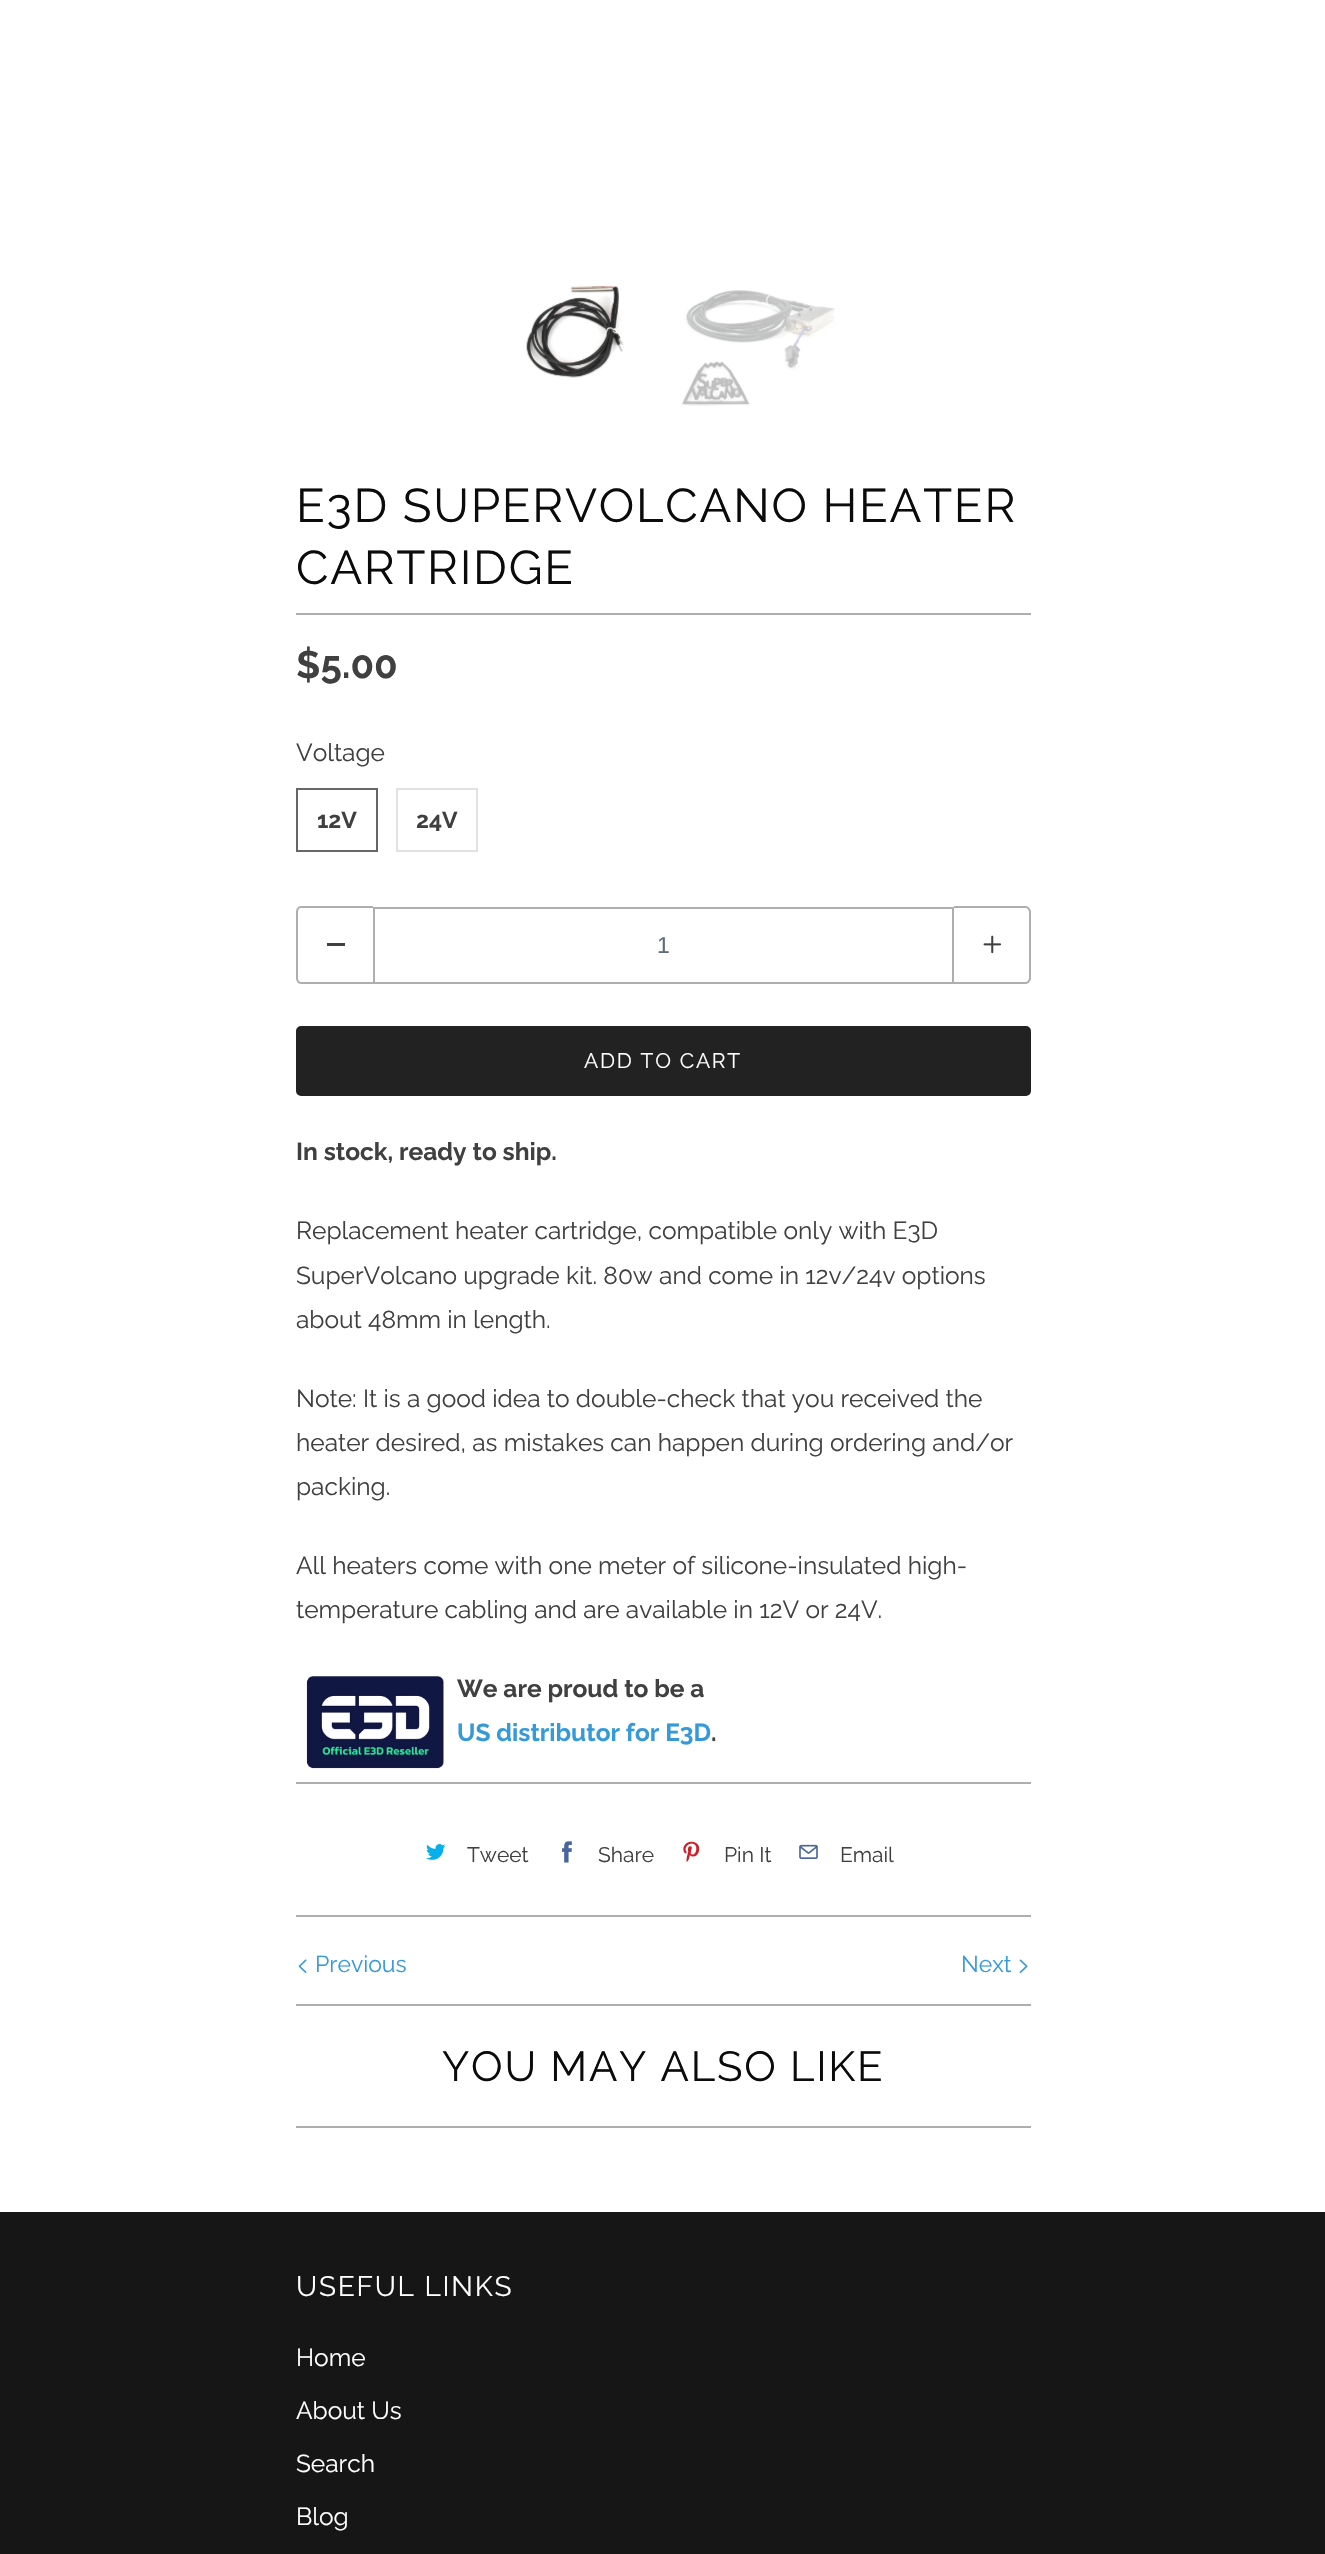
void draw(SkCanvas* canvas) {
  SkPaint paint;
  paint.setAntiAlias(true);
  auto face = [&](const char* family, int weight, float size, bool italic = false) {
    SkFontStyle style(weight, SkFontStyle::kNormal_Width,
      italic ? SkFontStyle::kItalic_Slant : SkFontStyle::kUpright_Slant);
    SkFont result(fontMgr->matchFamilyStyle(family, style), size);
    result.setSubpixel(true);
    return result;
  };
  auto writeSpaced = [&](const char* s, float x, float y, const SkFont& font, const SkPaint& ink, float letter, float word) {
    std::vector<SkGlyphID> glyphs(font.countText(s, strlen(s), SkTextEncoding::kUTF8));
    std::vector<float> xs(glyphs.size());
    font.textToGlyphs(s, strlen(s), SkTextEncoding::kUTF8, glyphs);
    font.getXPos(glyphs, xs, x);
    float extra = 0;
    for (size_t i = 0; i < glyphs.size(); i++) {
      xs[i] += extra;
      extra += letter + word * (glyphs[i] == font.unicharToGlyph(' '));
    }
    canvas->drawTextBlob(SkTextBlob::MakeFromPosHGlyphs(glyphs, xs, y, font), 0, 0, ink);
  };
  auto paste = [&](const char* path, float x, float y, float w, float h) {
    auto image = SkImages::DeferredFromEncodedData(SkData::MakeFromFileName(path));
    canvas->drawImageRect(image, SkRect::MakeXYWH(x, y, w, h), SkSamplingOptions());
  };
  auto shape = [&](const char* data, bool evenOdd = false) {
    SkPath result = *SkParsePath::FromSVGString(data);
    if (evenOdd) result.setFillType(SkPathFillType::kEvenOdd);
    return result;
  };
  canvas->clear(0xffffffff);
  paste("img/1.png", 526, 285, 98, 93);
  paste("img/2.png", 681, 290, 154, 116);
  paint.setColor(0xffaeaeb0);
  canvas->drawRect(SkRect::MakeXYWH(296, 613, 735, 2), paint);
  paint.setStroke(true);
  paint.setStrokeWidth(2);
  paint.setColor(0xff666666);
  canvas->drawRect(SkRect::MakeXYWH(297, 789, 80, 62), paint);
  paint.setColor(0xffe2e2e2);
  canvas->drawRect(SkRect::MakeXYWH(397, 789, 80, 62), paint);
  paint.setStroke(false);
  paint.setColor(0xffaeaeb0);
  canvas->drawPath(shape("M301 906H373V984H301C298 984 296 981 296 978V912C296 909 298 906 301 906ZM301 908H373V982H301C299 982 298 980 298 978V912C298 910 299 908 301 908Z", true), paint);
  paint.setColor(0xff404040);
  canvas->drawRect(SkRect::MakeXYWH(327, 943, 18, 3), paint);
  paint.setStroke(true);
  paint.setColor(0xffaeaeb0);
  canvas->drawRect(SkRect::MakeXYWH(374, 908, 579, 75), paint);
  paint.setStroke(false);
  canvas->drawPath(shape("M954 906H1026C1028 906 1031 909 1031 912V978C1031 981 1028 984 1026 984H954ZM954 908H1026C1027 908 1029 910 1029 912V978C1029 980 1027 982 1026 982H954Z", true), paint);
  paste("img/3.png", 983, 935, 18, 19);
  paint.setColor(0xff222222);
  canvas->drawRoundRect(SkRect::MakeXYWH(297, 1027, 733, 68), 4, 4, paint);
  paint.setStroke(true);
  canvas->drawRoundRect(SkRect::MakeXYWH(297, 1027, 733, 68), 4, 4, paint);
  paste("img/4.png", 306, 1676, 138, 93);
  paint.setStroke(false);
  paint.setColor(0xffaeaeb0);
  canvas->drawRect(SkRect::MakeXYWH(296, 1782, 735, 2), paint);
  paste("img/5.png", 426, 1844, 20, 16);
  paste("img/6.png", 562, 1841, 10, 22);
  paste("img/7.png", 683, 1841, 17, 21);
  paste("img/8.png", 799, 1844, 19, 15);
  canvas->drawRect(SkRect::MakeXYWH(296, 1915, 735, 2), paint);
  paste("img/9.png", 298, 1959, 9, 14);
  paste("img/10.png", 1019, 1959, 9, 15);
  {
    const struct { float x, y, w, h; SkColor color; } items[] = {
      {296, 2004, 735, 2, 0xffaeaeb0},
      {296, 2126, 735, 2, 0xffaeaeb0},
      {0, 2212, 1325, 342, 0xff161616},
    };
    for (auto [x, y, w, h, color] : items) {
      paint.setColor(color);
      canvas->drawRect(SkRect::MakeXYWH(x, y, w, h), paint);
    }
  }
  auto f0 = face("Raleway", 400, 47.25f);
  paint.setColor(0xff0b0b0c);
  writeSpaced("E3D SUPERVOLCANO HEATER", 296, 522, f0, paint, 1.75f, 0);
  writeSpaced("CARTRIDGE", 296, 584, f0, paint, 1.75f, 0);
  auto f1 = face("Raleway", 700, 38.5f);
  paint.setColor(0xff404040);
  canvas->drawString("$5.00", 296, 678, f1, paint);
  auto f2 = face("Raleway", 400, 24.5f);
  canvas->drawString("Voltage", 296, 761, f2, paint);
  auto f3 = face("Raleway", 700, 23);
  canvas->drawString("12V", 317, 828, f3, paint);
  canvas->drawString("24V", 416, 828, f3, paint);
  auto f4 = face("Liberation Sans", 400, 23);
  paint.setColor(0xff5f6a7d);
  canvas->drawString("1", 657, 953, f4, paint);
  auto f5 = face("Raleway", 400, 21);
  paint.setColor(0xffffffff);
  writeSpaced("ADD TO CART", 584, 1068, f5, paint, 1.75f, 0);
  auto f6 = face("Raleway", 700, 24.5f);
  paint.setColor(0xff404040);
  canvas->drawString("In stock, ready to ship.", 296, 1160, f6, paint);
  {
    const struct { const char* s; float x, y; } items[] = {
      {"Replacement heater cartridge, compatible only with E3D", 296, 1239},
      {"SuperVolcano upgrade kit. 80w and come in 12v/24v options", 296, 1284},
      {"about 48mm in length.", 296, 1328},
      {"Note: It is a good idea to double-check that you received the", 296, 1407},
      {"heater desired, as mistakes can happen during ordering and/or", 296, 1451},
      {"packing.", 296, 1495},
      {"All heaters come with one meter of silicone-insulated high-", 296, 1574},
      {"temperature cabling and are available in 12V or 24V.", 296, 1618},
    };
    for (auto [s, x, y] : items) {
      canvas->drawString(s, x, y, f2, paint);
    }
  }
  canvas->drawString("We are proud to be a", 457, 1697, f6, paint);
  paint.setColor(0xff369ad8);
  canvas->drawString("US distributor for E3D", 457, 1741, f6, paint);
  paint.setColor(0xff404040);
  canvas->drawString(".", 711, 1741, f6, paint);
  {
    const struct { const char* s; float x, y; } items[] = {
      {"Tweet", 467, 1862},
      {"Share", 598, 1862},
      {"Pin It", 724, 1862},
      {"Email", 840, 1862},
    };
    for (auto [s, x, y] : items) {
      canvas->drawString(s, x, y, f5, paint);
    }
  }
  auto f7 = face("Raleway", 400, 23);
  paint.setColor(0xff369ad8);
  canvas->drawString("Previous", 315, 1972, f7, paint);
  canvas->drawString("Next", 961, 1972, f7, paint);
  auto f8 = face("Raleway", 400, 42);
  paint.setColor(0xff0b0b0c);
  writeSpaced("YOU MAY ALSO LIKE", 442, 2081, f8, paint, 1.75f, 0);
  auto f9 = face("Raleway", 400, 28);
  paint.setColor(0xffffffff);
  writeSpaced("USEFUL LINKS", 296, 2296, f9, paint, 1.75f, 0);
  {
    const struct { const char* s; float x, y; } items[] = {
      {"Home", 296, 2366},
      {"About Us", 296, 2419},
      {"Search", 296, 2472},
      {"Blog", 296, 2525},
    };
    for (auto [s, x, y] : items) {
      canvas->drawString(s, x, y, f2, paint);
    }
  }
}
